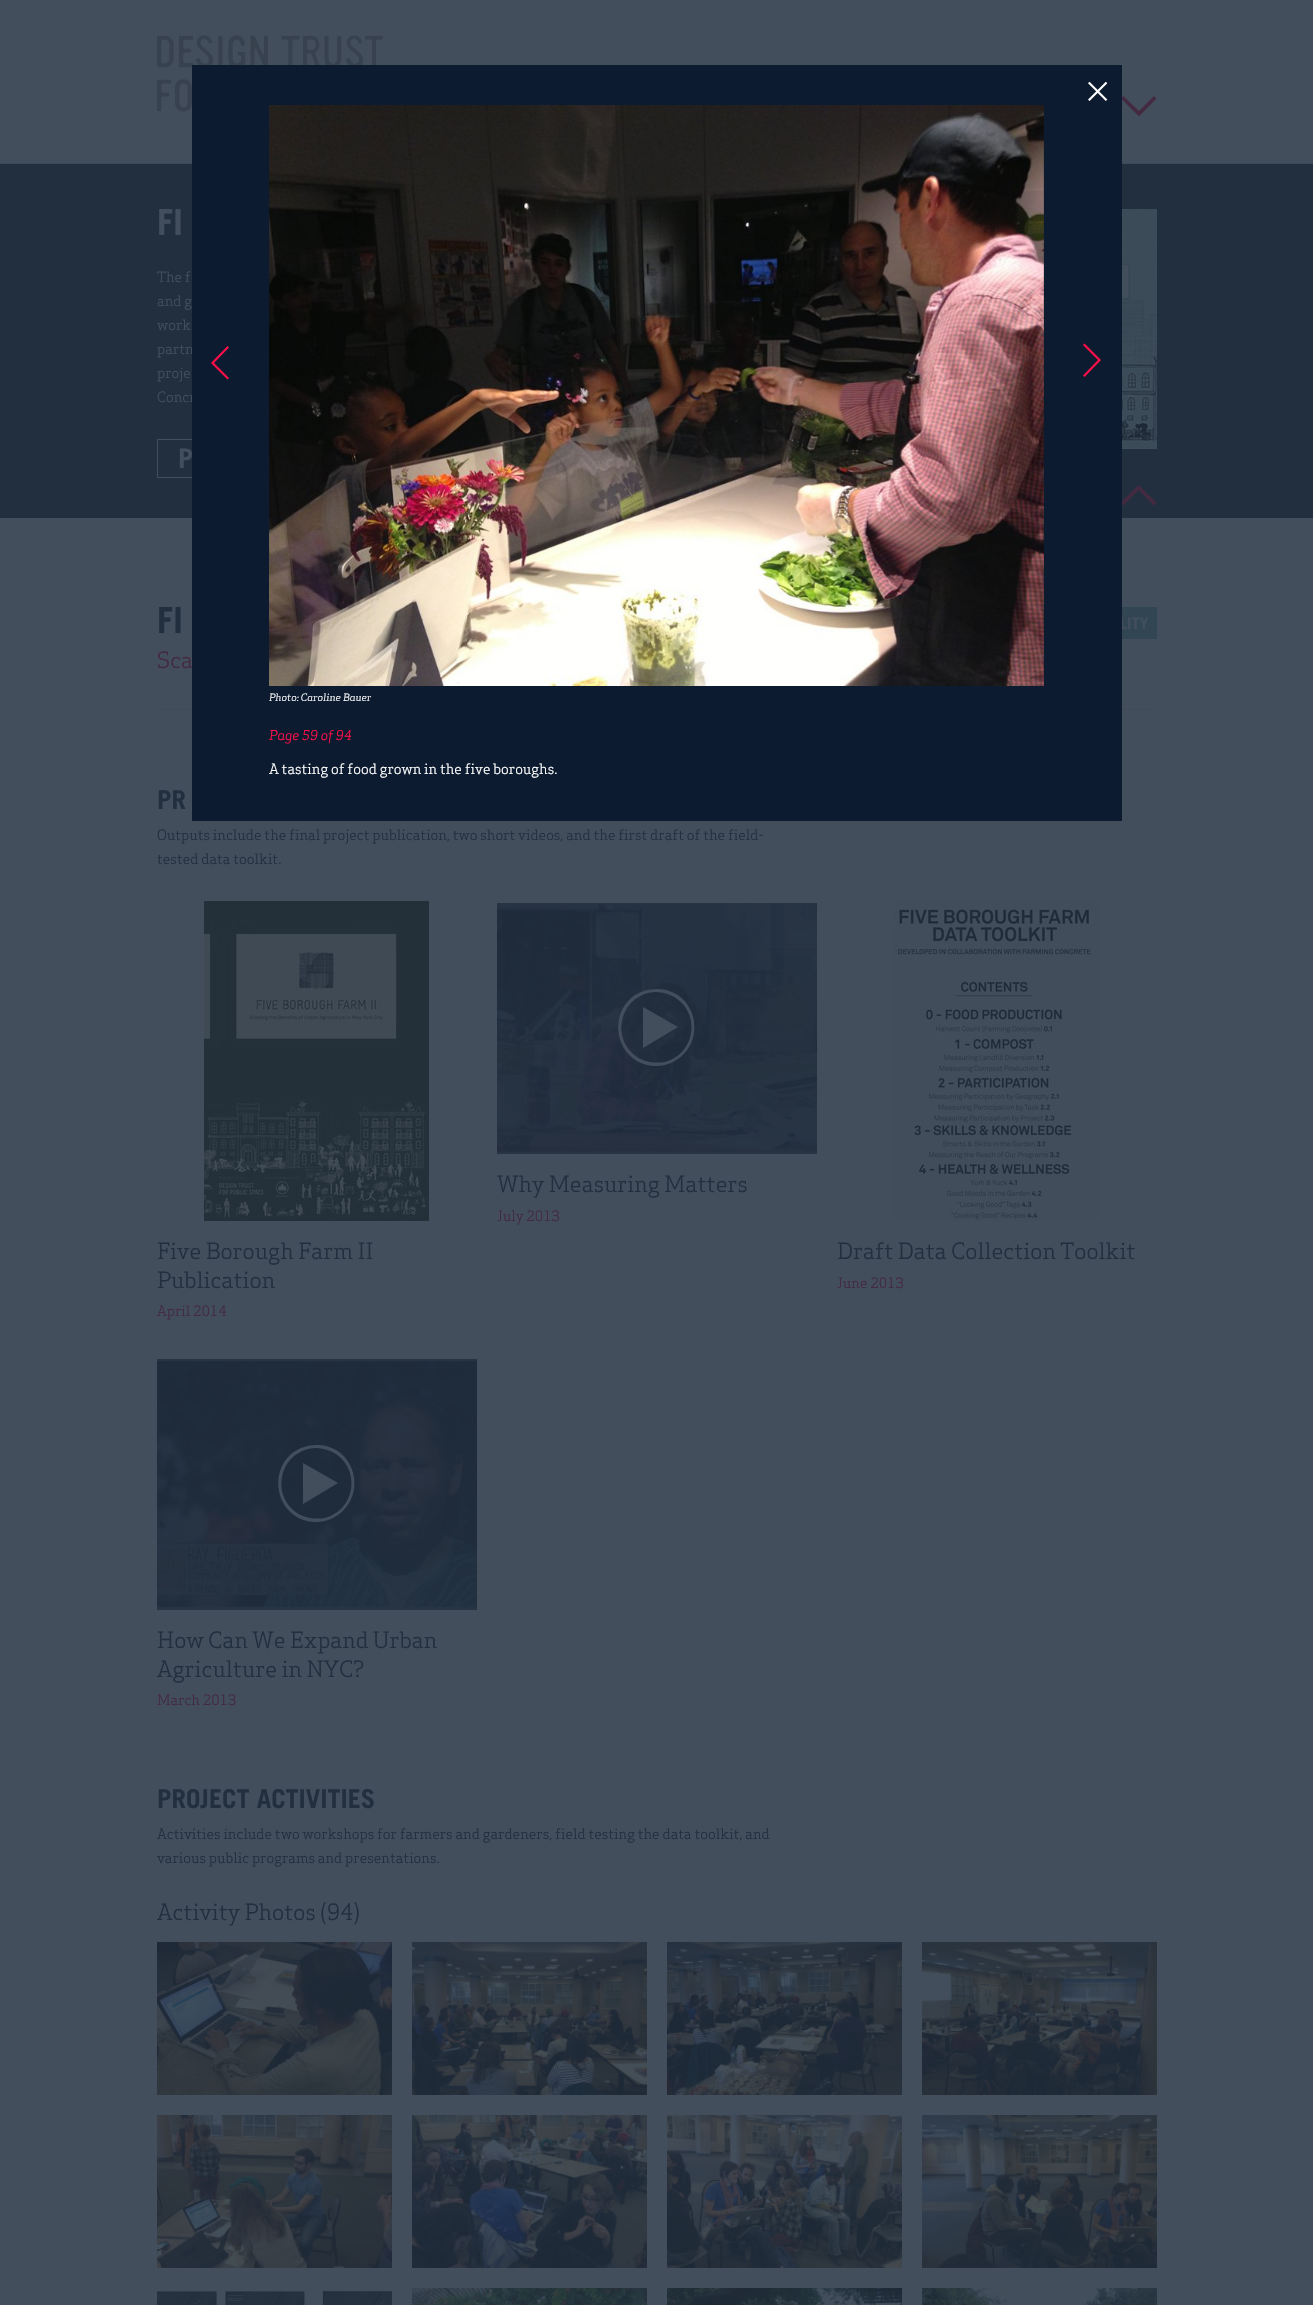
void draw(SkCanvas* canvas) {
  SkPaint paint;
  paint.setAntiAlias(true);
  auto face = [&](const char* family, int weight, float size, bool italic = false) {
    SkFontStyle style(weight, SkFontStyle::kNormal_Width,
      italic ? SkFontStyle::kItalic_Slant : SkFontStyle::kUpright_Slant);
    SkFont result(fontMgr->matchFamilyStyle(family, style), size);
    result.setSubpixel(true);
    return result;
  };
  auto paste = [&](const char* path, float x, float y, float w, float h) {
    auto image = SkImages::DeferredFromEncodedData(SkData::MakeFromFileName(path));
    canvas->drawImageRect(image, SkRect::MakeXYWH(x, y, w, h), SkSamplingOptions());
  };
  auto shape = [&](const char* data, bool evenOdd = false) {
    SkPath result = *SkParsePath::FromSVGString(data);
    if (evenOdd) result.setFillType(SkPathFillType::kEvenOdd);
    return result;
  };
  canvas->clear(0xff434e5c);
  paint.setColor(0xff3e4957);
  canvas->drawRect(SkRect::MakeXYWH(0, 163, 1313, 1), paint);
  paste("img/1.png", 157, 35, 227, 77);
  paint.setColor(0xff432a41);
  canvas->drawPath(shape("M1139 111L1154 96L1156.5 98.5L1139 116.5L1121 98.5L1123.5 96Z"), paint);
  paint.setColor(0xff222f3f);
  canvas->drawRect(SkRect::MakeXYWH(0, 164, 1313, 354), paint);
  paint.setStroke(true);
  paint.setStrokeWidth(1);
  paint.setColor(0xff434e5c);
  canvas->drawRect(SkRect::MakeXYWH(157.5f, 439.5f, 131, 38), paint);
  paste("img/2.png", 1122, 209, 35, 240);
  paint.setStroke(false);
  paint.setColor(0xff432a41);
  canvas->drawPath(shape("M1138.5 490L1123.5 505.5L1121 502.5L1138.5 485L1156.5 502.5L1154 505.5Z"), paint);
  paint.setColor(0xff404a58);
  canvas->drawRect(SkRect::MakeXYWH(157, 709, 1000, 1), paint);
  paint.setColor(0xff314552);
  canvas->drawRect(SkRect::MakeXYWH(1122, 607, 35, 32), paint);
  paste("img/3.png", 497, 903, 320, 251);
  paint.setColor(0xff434e5c);
  canvas->drawPath(shape("M678 1027L643 1048V1007ZM641 992C649 989 658 988 666 990C701 999 705 1048 671 1063C664 1066 655 1067 647 1065C612 1056 608 1006 641 992ZM643 1060C650 1063 658 1063 665 1062C698 1053 701 1008 670 995C663 992 655 991 648 993C615 1002 612 1047 643 1060Z"), paint);
  paste("img/4.png", 204, 901, 225, 320);
  paste("img/5.png", 894, 901, 205, 320);
  paste("img/6.png", 157, 1359, 320, 251);
  canvas->drawPath(shape("M338 1483L303 1504V1463ZM301 1448C309 1445 318 1444 326 1446C361 1455 365 1504 331 1519C324 1522 315 1523 307 1521C272 1512 268 1462 301 1448ZM303 1516C310 1519 318 1519 325 1518C358 1509 361 1464 330 1451C323 1448 315 1447 308 1449C275 1458 272 1503 303 1516Z"), paint);
  paste("img/7.png", 157, 1942, 235, 153);
  paste("img/8.png", 412, 1942, 235, 153);
  paste("img/9.png", 667, 1942, 235, 153);
  paste("img/10.png", 922, 1942, 235, 153);
  paste("img/11.png", 157, 2115, 235, 153);
  paste("img/12.png", 412, 2115, 235, 153);
  paste("img/13.png", 667, 2115, 235, 153);
  paste("img/14.png", 922, 2115, 235, 153);
  paste("img/15.png", 157, 2291, 235, 14);
  paste("img/16.png", 412, 2288, 235, 17);
  paste("img/17.png", 667, 2288, 235, 17);
  paste("img/18.png", 922, 2288, 235, 17);
  auto f0 = face("Trade Gothic", 700, 36);
  canvas->drawString("FI", 157, 235, f0, paint);
  auto f1 = face("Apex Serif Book", 400, 14);
  {
    const struct { const char* s; float x, y; } items[] = {
      {"The f", 157, 282},
      {"and g", 157, 306},
      {"work", 157, 330},
      {"partn", 157, 354},
      {"proje", 157, 378},
      {"Concr", 157, 402},
    };
    for (auto [s, x, y] : items) {
      canvas->drawString(s, x, y, f1, paint);
    }
  }
  auto f2 = face("Trade Gothic", 700, 27);
  canvas->drawString("P", 178, 468, f2, paint);
  paint.setColor(0xff222f3f);
  canvas->drawString("FI", 157, 633, f0, paint);
  auto f3 = face("Apex Serif Book", 400, 22);
  paint.setColor(0xff432a41);
  canvas->drawString("Sca", 157, 668, f3, paint);
  auto f4 = face("Trade Gothic", 700, 16);
  paint.setColor(0xff434e5c);
  canvas->drawString("LITY", 1120, 629, f4, paint);
  auto f5 = face("Trade Gothic", 700, 26);
  paint.setColor(0xff222f3f);
  canvas->drawString("PR", 157, 809, f5, paint);
  canvas->drawString("Outputs include the final project publication, two short videos, and the first draft of the field-", 157, 840, f1, paint);
  canvas->drawString("tested data toolkit.", 157, 864, f1, paint);
  canvas->drawString("Why Measuring Matters", 497, 1192, f3, paint);
  paint.setColor(0xff432a41);
  canvas->drawString("July 2013", 497, 1221, f1, paint);
  paint.setColor(0xff222f3f);
  canvas->drawString("Five Borough Farm II", 157, 1259, f3, paint);
  canvas->drawString("Publication", 157, 1288, f3, paint);
  paint.setColor(0xff432a41);
  canvas->drawString("April 2014", 157, 1316, f1, paint);
  paint.setColor(0xff222f3f);
  canvas->drawString("Draft Data Collection Toolkit", 837, 1259, f3, paint);
  paint.setColor(0xff432a41);
  canvas->drawString("June 2013", 837, 1288, f1, paint);
  paint.setColor(0xff222f3f);
  canvas->drawString("How Can We Expand Urban", 157, 1648, f3, paint);
  canvas->drawString("Agriculture in NYC?", 157, 1677, f3, paint);
  paint.setColor(0xff432a41);
  canvas->drawString("March 2013", 157, 1705, f1, paint);
  paint.setColor(0xff222f3f);
  canvas->drawString("PROJECT ACTIVITIES", 157, 1808, f5, paint);
  canvas->drawString("Activities include two workshops for farmers and gardeners, field testing the data toolkit, and", 157, 1839, f1, paint);
  canvas->drawString("various public programs and presentations.", 157, 1863, f1, paint);
  canvas->drawString("Activity Photos (94)", 157, 1920, f3, paint);
  paint.setColor(0xff0c1b2f);
  canvas->drawRect(SkRect::MakeXYWH(192, 65, 930, 756), paint);
  paste("img/19.png", 1088, 81, 20, 20);
  paint.setColor(0xffff0e49);
  canvas->drawPath(shape("M227.5 379.5L211 363L227.5 346L229 347.5L214 363L229 378Z"), paint);
  canvas->drawPath(shape("M1084.5 343.5L1101 360L1084.5 377L1083 375.5L1098 360L1083 345Z"), paint);
  paste("img/20.png", 269, 105, 775, 581);
  auto f6 = face("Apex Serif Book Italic", 400, 10, true);
  paint.setColor(0xffffffff);
  canvas->drawString("Photo: Caroline Bauer", 269, 701, f6, paint);
  auto f7 = face("Apex Serif Book Italic", 400, 13.25f, true);
  paint.setColor(0xffff0e49);
  canvas->drawString("Page 59 of 94", 269, 740, f7, paint);
  paint.setColor(0xffffffff);
  canvas->drawString("A tasting of food grown in the five boroughs.", 269, 774, f1, paint);
}
